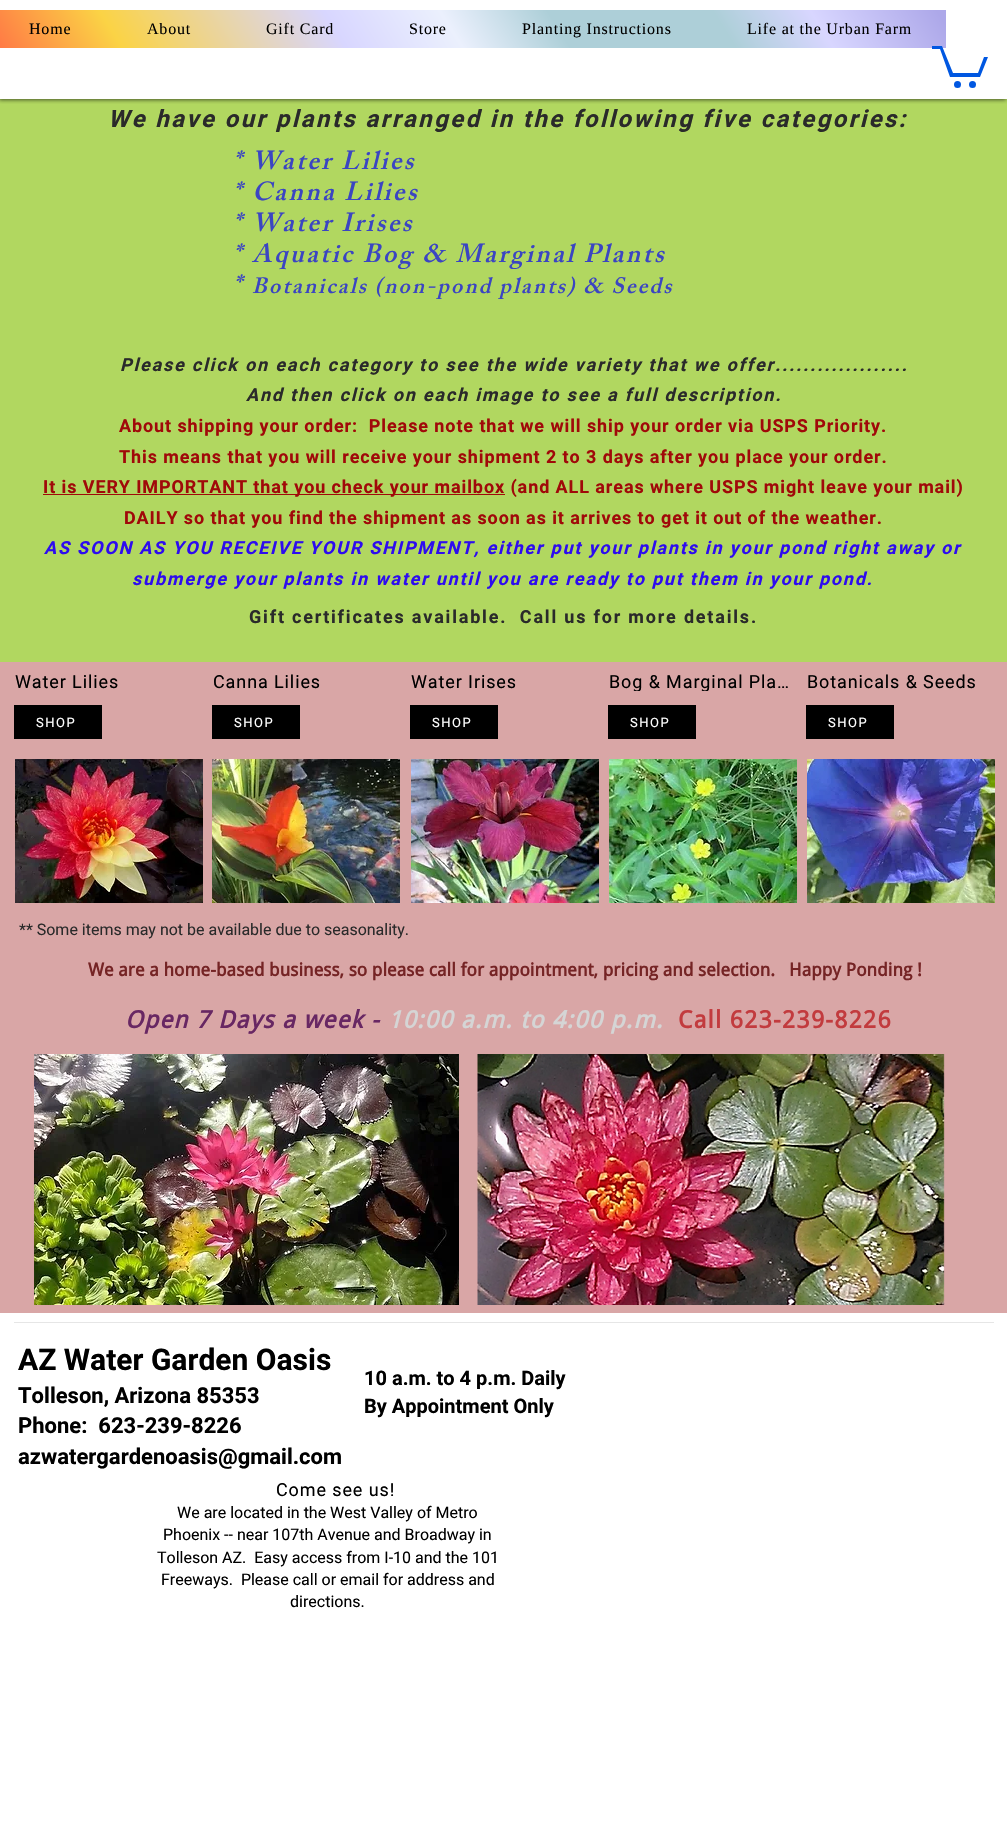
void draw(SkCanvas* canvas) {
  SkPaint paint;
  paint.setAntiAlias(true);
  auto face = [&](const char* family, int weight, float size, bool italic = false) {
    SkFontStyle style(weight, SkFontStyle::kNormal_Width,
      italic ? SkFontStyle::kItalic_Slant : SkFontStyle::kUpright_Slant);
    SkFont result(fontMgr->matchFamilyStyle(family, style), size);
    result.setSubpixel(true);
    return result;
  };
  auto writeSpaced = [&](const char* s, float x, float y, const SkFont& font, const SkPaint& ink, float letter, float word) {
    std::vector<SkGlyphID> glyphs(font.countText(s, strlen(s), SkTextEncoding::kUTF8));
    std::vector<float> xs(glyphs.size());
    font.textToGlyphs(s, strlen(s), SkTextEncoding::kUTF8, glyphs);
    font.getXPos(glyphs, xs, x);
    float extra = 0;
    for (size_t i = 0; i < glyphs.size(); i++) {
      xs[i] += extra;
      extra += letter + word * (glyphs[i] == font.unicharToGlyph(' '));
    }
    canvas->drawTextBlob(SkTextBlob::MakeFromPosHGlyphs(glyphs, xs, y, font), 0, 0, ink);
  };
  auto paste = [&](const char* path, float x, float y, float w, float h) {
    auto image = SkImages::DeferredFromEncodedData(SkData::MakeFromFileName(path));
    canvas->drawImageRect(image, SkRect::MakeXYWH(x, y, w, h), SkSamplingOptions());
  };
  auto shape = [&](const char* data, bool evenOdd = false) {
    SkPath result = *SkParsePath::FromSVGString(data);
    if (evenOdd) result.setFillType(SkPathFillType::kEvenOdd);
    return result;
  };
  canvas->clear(0xffffffff);
  paint.setColor(0xffb1d760);
  canvas->drawRect(SkRect::MakeXYWH(0, 99, 1007, 563), paint);
  canvas->save();
  canvas->clipRect(SkRect::MakeXYWH(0, 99, 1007, 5));
  paint.setColor(0x99000000);
  paint.setMaskFilter(SkMaskFilter::MakeBlur(kNormal_SkBlurStyle, 2));
  canvas->drawRect(SkRect::MakeXYWH(-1, 1, 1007, 99), paint);
  paint.setMaskFilter(nullptr);
  canvas->restore();
  {
    const SkColor colors[] = {0xffff7745, 0xfffbd345, 0xffd8d6ff, 0xffebf0fd, 0xffadcfd8, 0xffadcfd8, 0xffd8d6ff, 0xffada8e9};
    const float stops[] = {0, 0.13f, 0.36f, 0.48f, 0.59f, 0.76f, 0.86f, 0.99f};
    const SkPoint ends[] = {{121, 248}, {821, -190}};
    paint.setShader(SkGradientShader::MakeLinear(ends, colors, stops, 8, SkTileMode::kClamp));
    paint.setAlpha(255);
  }
  canvas->drawRect(SkRect::MakeXYWH(0, 10, 946, 38), paint);
  paint.setShader(nullptr);
  paint.setColor(0xff0057e1);
  canvas->drawPath(shape("M988 57L980 77H950L940 49H932V46H942L953 73H978L984 57"), paint);
  canvas->drawCircle(972.5f, 84.5f, 3.5f, paint);
  canvas->drawCircle(957.5f, 84.5f, 3.5f, paint);
  {
    const struct { float x, y, w, h; SkColor color; } items[] = {
      {43, 494, 462, 1, 0xffa00909},
      {0, 662, 1007, 651, 0xffd9a6a6},
      {14, 705, 88, 34, 0xff000000},
    };
    for (auto [x, y, w, h, color] : items) {
      paint.setColor(color);
      canvas->drawRect(SkRect::MakeXYWH(x, y, w, h), paint);
    }
  }
  paste("img/1.png", 15, 759, 188, 144);
  canvas->drawRect(SkRect::MakeXYWH(212, 705, 88, 34), paint);
  paste("img/2.png", 212, 759, 188, 144);
  canvas->drawRect(SkRect::MakeXYWH(410, 705, 88, 34), paint);
  paste("img/3.png", 411, 759, 188, 144);
  canvas->drawRect(SkRect::MakeXYWH(608, 705, 88, 34), paint);
  paste("img/4.png", 609, 759, 188, 144);
  canvas->drawRect(SkRect::MakeXYWH(806, 705, 88, 34), paint);
  paste("img/5.png", 807, 759, 188, 144);
  paste("img/6.png", 34, 1054, 425, 251);
  paste("img/7.png", 477, 1054, 468, 251);
  paint.setColor(0xffe6e6e6);
  canvas->drawRect(SkRect::MakeXYWH(14, 1322, 980, 1), paint);
  auto f0 = face("Liberation Serif", 400, 16);
  paint.setColor(0xff000000);
  {
    const struct { const char* s; float x, y; } items[] = {
      {"Home", 29, 34},
      {"About", 147, 34},
      {"Gift Card", 266, 34},
      {"Store", 409, 34},
      {"Planting Instructions", 522, 34},
      {"Life at the Urban Farm", 747, 34},
    };
    for (auto [s, x, y] : items) {
      writeSpaced(s, x, y, f0, paint, 0.8f, 0);
    }
  }
  auto f1 = face("Roboto", 700, 24, true);
  paint.setColor(0xff2a2a2a);
  writeSpaced("We have our plants arranged in the following five categories:", 108, 127, f1, paint, 2.4f, 0);
  auto f2 = face("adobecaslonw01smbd", 600, 26, true);
  paint.setColor(0xff3b45c2);
  canvas->drawString("*", 233, 169, f2, paint);
  {
    const struct { const char* s; float x, y; } items[] = {
      {"Water Lilies", 252, 169},
      {"* Canna Lilies", 233, 200},
      {"* Water Irises", 233, 231},
      {"* Aquatic Bog & Marginal Plants", 233, 262},
      {"*", 233, 293},
    };
    for (auto [s, x, y] : items) {
      writeSpaced(s, x, y, f2, paint, 2.6f, 0);
    }
  }
  auto f3 = face("adobecaslonw01smbd", 600, 22, true);
  writeSpaced("Botanicals (non-pond plants) & Seeds", 252, 293, f3, paint, 2.2f, 0);
  auto f4 = face("Roboto", 700, 18, true);
  paint.setColor(0xff2a2a2a);
  writeSpaced("Please click on each category to see the wide variety that we offer...................", 120, 371, f4, paint, 1.8f, 0);
  writeSpaced("And then click on each image to see a full description.", 246, 401, f4, paint, 1.8f, 0);
  auto f5 = face("Roboto", 700, 18);
  paint.setColor(0xffa00909);
  {
    const struct { const char* s; float x, y; } items[] = {
      {"About shipping your order:  Please note that we will ship your order via USPS Priority.", 119, 432},
      {"This means that you will receive your shipment 2 to 3 days after you place your order.", 119, 463},
      {"It is VERY IMPORTANT that you check your mailbox (and ALL areas where USPS might leave your mail)", 43, 493},
      {"DAILY so that you find the shipment as soon as it arrives to get it out of the weather.", 124, 524},
    };
    for (auto [s, x, y] : items) {
      writeSpaced(s, x, y, f5, paint, 0.9f, 0);
    }
  }
  paint.setColor(0xff2d0cef);
  writeSpaced("AS SOON AS YOU RECEIVE YOUR SHIPMENT, either put your plants in your pond right away or", 44, 554, f4, paint, 1.8f, 0);
  writeSpaced("submerge your plants in water until you are ready to put them in your pond.", 132, 585, f4, paint, 1.8f, 0);
  paint.setColor(0xff2a2a2a);
  writeSpaced("Gift certificates available.  Call us for more details.", 249, 623, f5, paint, 1.8f, 0);
  auto f6 = face("Roboto", 400, 18);
  paint.setColor(0xff000000);
  writeSpaced("Water Lilies", 15, 688, f6, paint, 0.9f, 0);
  auto f7 = face("Roboto", 400, 13);
  paint.setColor(0xffffffff);
  writeSpaced("SHOP", 36, 727, f7, paint, 1.5f, 0);
  paint.setColor(0xff000000);
  writeSpaced("Canna Lilies", 213, 688, f6, paint, 0.9f, 0);
  paint.setColor(0xffffffff);
  writeSpaced("SHOP", 234, 727, f7, paint, 1.5f, 0);
  paint.setColor(0xff000000);
  writeSpaced("Water Irises", 411, 688, f6, paint, 0.9f, 0);
  paint.setColor(0xffffffff);
  writeSpaced("SHOP", 432, 727, f7, paint, 1.5f, 0);
  canvas->save();
  canvas->clipRect(SkRect::MakeXYWH(609, 673, 184, 18));
  paint.setColor(0xff000000);
  writeSpaced("Bog & Marginal Pla…", 609, 688, f6, paint, 0.9f, 0);
  canvas->restore();
  paint.setColor(0xffffffff);
  writeSpaced("SHOP", 630, 727, f7, paint, 1.5f, 0);
  paint.setColor(0xff000000);
  writeSpaced("Botanicals & Seeds", 807, 688, f6, paint, 0.9f, 0);
  paint.setColor(0xffffffff);
  writeSpaced("SHOP", 828, 727, f7, paint, 1.5f, 0);
  auto f8 = face("Roboto", 400, 16);
  paint.setColor(0xff2a2a2a);
  canvas->drawString("** Some items may not be available due to seasonality.", 19, 935, f8, paint);
  auto f9 = face("Droid Sans", 700, 18);
  paint.setColor(0xff752425);
  canvas->drawString("We are a home-based business, so please call for appointment, pricing and selection.   Happy Ponding !", 88, 976, f9, paint);
  auto f10 = face("Droid Sans", 700, 24, true);
  paint.setColor(0xff682763);
  writeSpaced("Open 7 Days a week -", 125, 1028, f10, paint, 1.2f, 0);
  paint.setColor(0xffd5d5d5);
  writeSpaced("10:00 a.m. to 4:00 p.m.", 388, 1028, f10, paint, 1.2f, 0);
  auto f11 = face("Droid Sans", 700, 24);
  paint.setColor(0xffc23b3e);
  writeSpaced("Call 623-239-8226", 678, 1028, f11, paint, 1.2f, 0);
  auto f12 = face("Roboto", 700, 30);
  paint.setColor(0xff000000);
  canvas->drawString("AZ Water Garden Oasis", 18, 1370, f12, paint);
  auto f13 = face("Roboto", 700, 22);
  {
    const struct { const char* s; float x, y; } items[] = {
      {"Tolleson, Arizona 85353", 18, 1403},
      {"Phone:  623-239-8226", 18, 1433},
      {"azwatergardenoasis@gmail.com", 18, 1464},
    };
    for (auto [s, x, y] : items) {
      canvas->drawString(s, x, y, f13, paint);
    }
  }
  auto f14 = face("Roboto", 700, 20);
  canvas->drawString("10 a.m. to 4 p.m. Daily", 364, 1385, f14, paint);
  canvas->drawString("By Appointment Only", 364, 1413, f14, paint);
  writeSpaced("Come see us!", 276, 1496, f6, paint, 0.9f, 0);
  {
    const struct { const char* s; float x, y; } items[] = {
      {"We are located in the West Valley of Metro", 177, 1518},
      {"Phoenix -- near 107th Avenue and Broadway in", 163, 1540},
      {"Tolleson AZ.  Easy access from I-10 and the 101", 157, 1563},
      {"Freeways.  Please call or email for address and", 161, 1585},
      {"directions.", 290, 1607},
    };
    for (auto [s, x, y] : items) {
      canvas->drawString(s, x, y, f8, paint);
    }
  }
}
